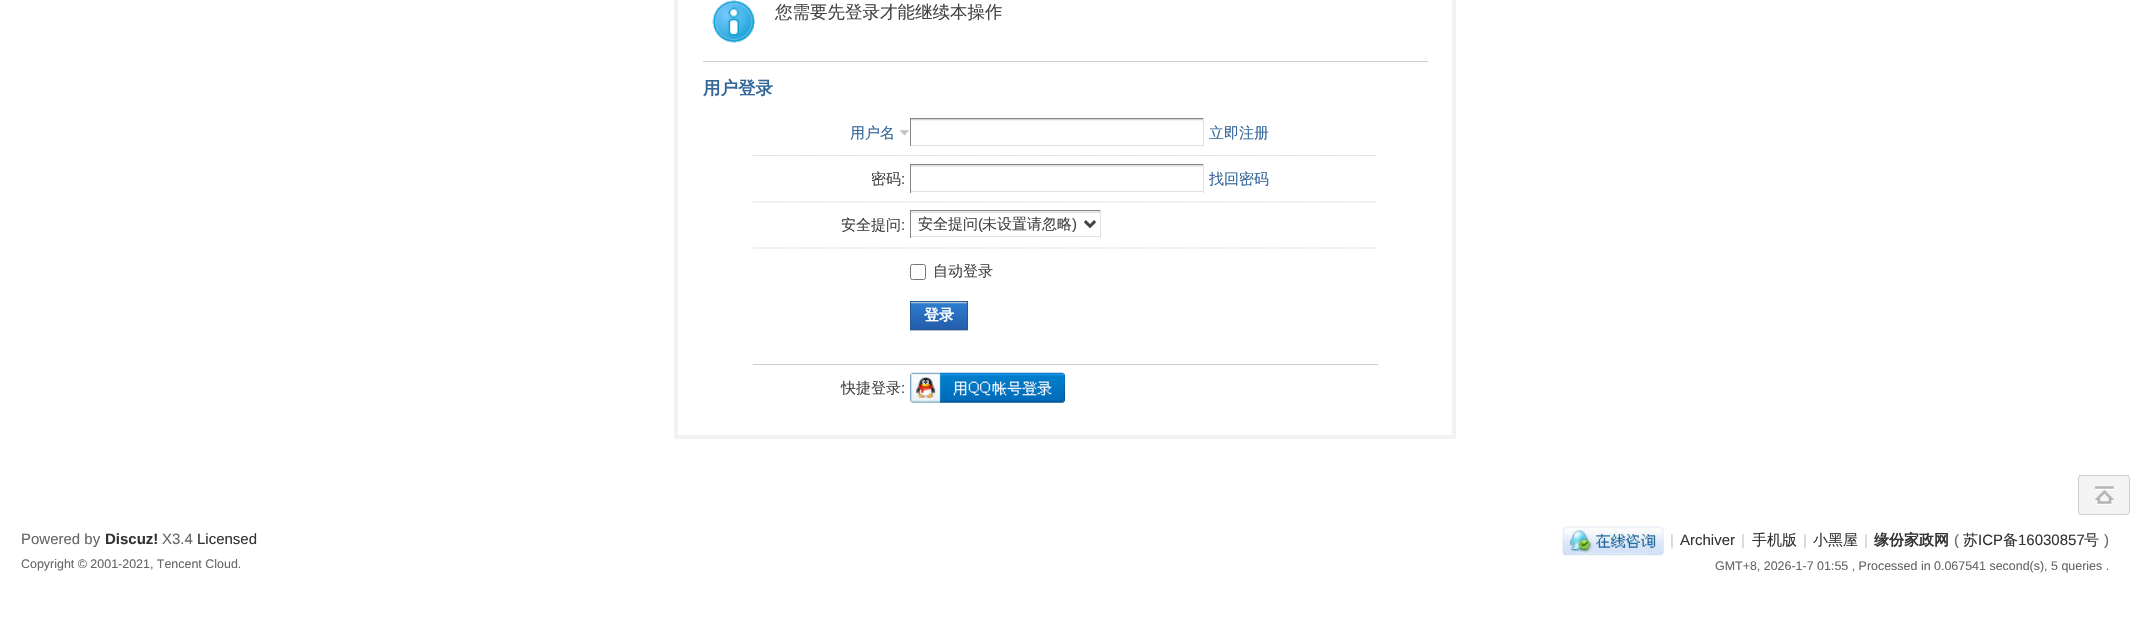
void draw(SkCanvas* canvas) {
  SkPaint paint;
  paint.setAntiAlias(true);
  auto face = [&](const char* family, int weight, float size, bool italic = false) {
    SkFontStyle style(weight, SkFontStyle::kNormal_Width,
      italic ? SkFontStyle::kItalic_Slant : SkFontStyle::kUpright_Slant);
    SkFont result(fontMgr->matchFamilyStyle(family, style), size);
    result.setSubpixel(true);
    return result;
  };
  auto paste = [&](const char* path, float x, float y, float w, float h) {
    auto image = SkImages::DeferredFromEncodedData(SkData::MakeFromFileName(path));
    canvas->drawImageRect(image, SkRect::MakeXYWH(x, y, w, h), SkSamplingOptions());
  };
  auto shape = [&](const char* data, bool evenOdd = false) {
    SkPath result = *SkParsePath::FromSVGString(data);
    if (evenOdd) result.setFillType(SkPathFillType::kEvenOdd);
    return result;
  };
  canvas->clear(0xffffffff);
  paint.setStroke(true);
  paint.setStrokeWidth(4);
  paint.setColor(0xfff2f2f2);
  canvas->drawRect(SkRect::MakeXYWH(676, -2, 778, 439), paint);
  paste("img/1.png", 712, 0, 43, 43);
  paint.setStroke(false);
  paint.setColor(0xffcdcdcd);
  canvas->drawRect(SkRect::MakeXYWH(703, 61, 725, 1), paint);
  paint.setStroke(true);
  paint.setStrokeWidth(1.2f);
  paint.setPathEffect(SkDashPathEffect::Make({{1.25f, 1.25f}}, 0));
  canvas->drawPath(shape("M752.5 155.5H1377.5"), paint);
  paint.setPathEffect(nullptr);
  paste("img/2.png", 900, 130, 9, 6);
  paste("img/3.png", 911, 119, 292, 2);
  paint.setStroke(false);
  {
    const struct { float x, y, w, h; SkColor color; } items[] = {
      {910, 118, 294, 1, 0xff848484},
      {1203, 118, 1, 28, 0xffe0e0e0},
      {910, 145, 294, 1, 0xffe0e0e0},
      {910, 118, 1, 28, 0xff848484},
    };
    for (auto [x, y, w, h, color] : items) {
      paint.setColor(color);
      canvas->drawRect(SkRect::MakeXYWH(x, y, w, h), paint);
    }
  }
  paint.setStroke(true);
  paint.setColor(0xffcdcdcd);
  paint.setPathEffect(SkDashPathEffect::Make({{1.25f, 1.25f}}, 0));
  canvas->drawPath(shape("M752.5 202H1377.5"), paint);
  paint.setPathEffect(nullptr);
  paste("img/4.png", 911, 165, 292, 2);
  paint.setStroke(false);
  {
    const struct { float x, y, w, h; SkColor color; } items[] = {
      {910, 164, 294, 1, 0xff848484},
      {1203, 164, 1, 29, 0xffe0e0e0},
      {910, 191, 294, 1, 0xffe0e0e0},
      {910, 164, 1, 29, 0xff848484},
    };
    for (auto [x, y, w, h, color] : items) {
      paint.setColor(color);
      canvas->drawRect(SkRect::MakeXYWH(x, y, w, h), paint);
    }
  }
  paint.setStroke(true);
  paint.setColor(0xffcdcdcd);
  paint.setPathEffect(SkDashPathEffect::Make({{1.25f, 1.25f}}, 0));
  canvas->drawPath(shape("M752.5 248H1377.5"), paint);
  paint.setPathEffect(nullptr);
  paste("img/5.png", 911, 211, 191, 18);
  paint.setStroke(false);
  {
    const struct { float x, y, w, h; SkColor color; } items[] = {
      {910, 210, 191, 1, 0xff848484},
      {1100, 210, 1, 28, 0xffe0e0e0},
      {910, 236, 191, 1, 0xffe0e0e0},
      {910, 210, 1, 28, 0xff848484},
    };
    for (auto [x, y, w, h, color] : items) {
      paint.setColor(color);
      canvas->drawRect(SkRect::MakeXYWH(x, y, w, h), paint);
    }
  }
  paint.setStroke(true);
  paint.setStrokeWidth(2.5f);
  paint.setColor(0xff444444);
  canvas->drawPath(shape("M1085 221L1090 226L1095 221"), paint);
  paint.setStrokeWidth(1);
  paint.setColor(0xff767676);
  canvas->drawRoundRect(SkRect::MakeXYWH(910.5f, 264.5f, 15, 15), 2, 2, paint);
  paint.setStroke(false);
  paint.setColor(0xffe5e5e5);
  canvas->drawPath(shape("M910 330V331H968V303V330Z"), paint);
  paste("img/6.png", 910, 302, 58, 29);
  paint.setStroke(true);
  paint.setColor(0xff235994);
  canvas->drawRect(SkRect::MakeXYWH(910.5f, 301.5f, 57, 28), paint);
  paint.setStroke(false);
  paint.setColor(0xffcdcdcd);
  canvas->drawRect(SkRect::MakeXYWH(753, 364, 625, 1), paint);
  paste("img/7.png", 910, 372, 155, 31);
  paint.setColor(0xfff4f4f4);
  canvas->drawRoundRect(SkRect::MakeXYWH(2078, 475, 52, 40), 4, 4, paint);
  paint.setColor(0xffcdcdcd);
  canvas->drawPath(shape("M2081 475H2126C2128 475 2130 477 2130 479V511C2130 513 2128 515 2126 515H2081C2079 515 2078 513 2078 511V479C2078 477 2079 475 2081 475ZM2081 475H2126C2128 475 2129 477 2129 479V511C2129 513 2128 514 2126 514H2081C2080 514 2079 513 2079 511V479C2079 477 2080 475 2081 475Z", true), paint);
  paste("img/8.png", 2095, 486, 19, 19);
  canvas->drawRect(SkRect::MakeXYWH(2079, 475, 50, 1), paint);
  paste("img/9.png", 1562, 526, 102, 30);
  auto f0 = face("WenQuanYi Zen Hei", 500, 17.5f);
  paint.setColor(0xff444444);
  canvas->drawString("您需要先登录才能继续本操作", 775, 18, f0, paint);
  auto f1 = face("WenQuanYi Zen Hei", 700, 17.5f);
  paint.setColor(0xff336699);
  canvas->drawString("用户登录", 703, 94, f1, paint);
  auto f2 = face("WenQuanYi Zen Hei", 500, 15);
  canvas->drawString("用户名", 850, 138, f2, paint);
  canvas->drawString("立即注册", 1209, 138, f2, paint);
  paint.setColor(0xff444444);
  canvas->drawString("密码", 871, 184, f2, paint);
  auto f3 = face("Liberation Sans", 400, 15);
  canvas->drawString(":", 901, 184, f3, paint);
  paint.setColor(0xff336699);
  canvas->drawString("找回密码", 1209, 184, f2, paint);
  paint.setColor(0xff444444);
  canvas->drawString("安全提问", 841, 230, f2, paint);
  canvas->drawString(":", 901, 230, f3, paint);
  canvas->drawString("安全提问", 918, 229, f2, paint);
  canvas->drawString("(", 978, 229, f3, paint);
  canvas->drawString("未设置请忽略", 982, 229, f2, paint);
  canvas->drawString(")", 1072, 229, f3, paint);
  canvas->drawString("自动登录", 933, 276, f2, paint);
  auto f4 = face("WenQuanYi Zen Hei", 700, 15);
  paint.setColor(0xffffffff);
  canvas->drawString("登录", 924, 320, f4, paint);
  paint.setColor(0xff444444);
  canvas->drawString("快捷登录", 841, 393, f2, paint);
  canvas->drawString(":", 901, 393, f3, paint);
  paint.setColor(0xff666666);
  canvas->drawString("Powered by", 21, 544, f3, paint);
  auto f5 = face("Liberation Sans", 700, 15);
  paint.setColor(0xff333333);
  canvas->drawString("Discuz!", 105, 544, f5, paint);
  paint.setColor(0xff666666);
  canvas->drawString("X3.4", 162, 544, f3, paint);
  paint.setColor(0xff333333);
  canvas->drawString("Licensed", 197, 544, f3, paint);
  auto f6 = face("Liberation Sans", 400, 12.45f);
  paint.setColor(0xff666666);
  canvas->drawString("Copyright © 2001-2021, Tencent Cloud.", 21, 568, f6, paint);
  paint.setColor(0xffcccccc);
  canvas->drawString("|", 1670, 545, f3, paint);
  paint.setColor(0xff333333);
  canvas->drawString("Archiver", 1680, 545, f3, paint);
  paint.setColor(0xffcccccc);
  canvas->drawString("|", 1741, 545, f3, paint);
  paint.setColor(0xff333333);
  canvas->drawString("手机版", 1752, 545, f2, paint);
  paint.setColor(0xffcccccc);
  canvas->drawString("|", 1803, 545, f3, paint);
  paint.setColor(0xff333333);
  canvas->drawString("小黑屋", 1813, 545, f2, paint);
  paint.setColor(0xffcccccc);
  canvas->drawString("|", 1864, 545, f3, paint);
  paint.setColor(0xff333333);
  canvas->drawString("缘份家政网", 1874, 545, f4, paint);
  paint.setColor(0xff666666);
  canvas->drawString("(", 1954, 545, f3, paint);
  paint.setColor(0xff333333);
  canvas->drawString("苏", 1963, 545, f2, paint);
  canvas->drawString("ICP", 1978, 545, f3, paint);
  canvas->drawString("备", 2003, 545, f2, paint);
  canvas->drawString("16030857", 2018, 545, f3, paint);
  canvas->drawString("号", 2084, 545, f2, paint);
  paint.setColor(0xff666666);
  canvas->drawString(")", 2104, 545, f3, paint);
  canvas->drawString("GMT+8, 2026-1-7 01:55 , Processed in 0.067541 second(s), 5 queries .", 1715, 570, f6, paint);
}
